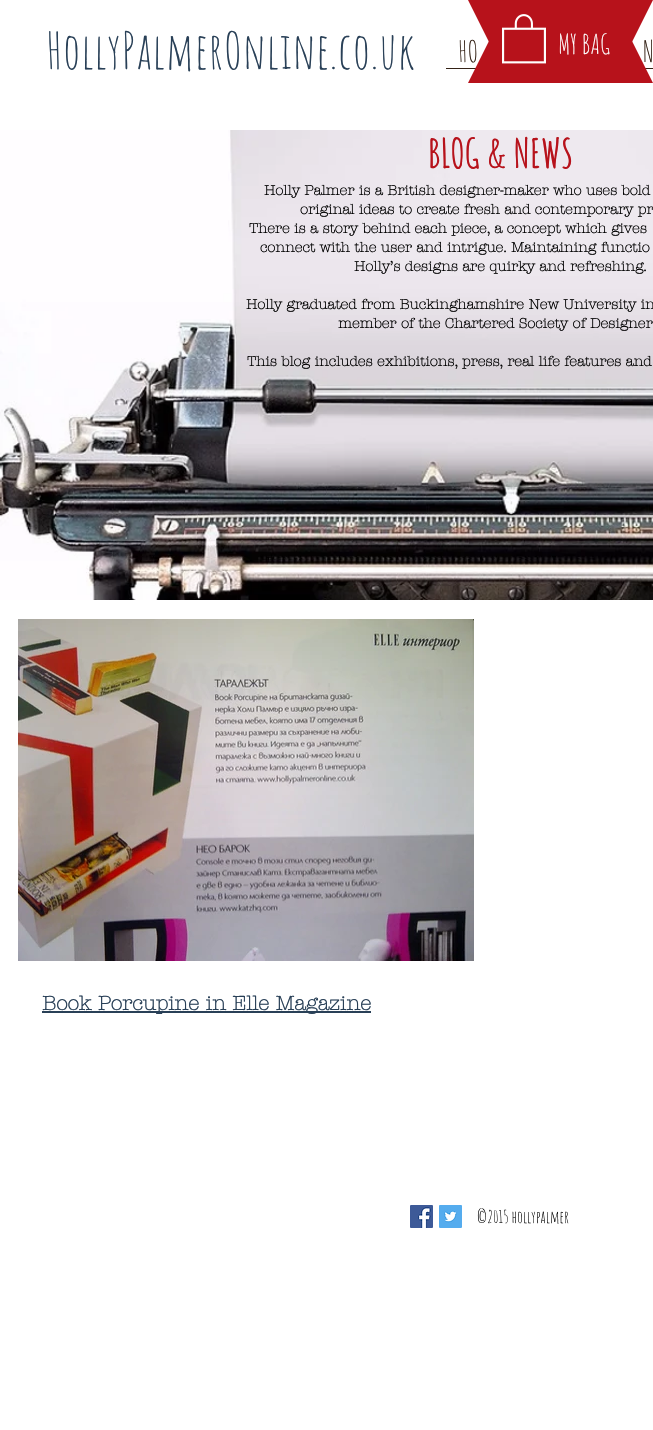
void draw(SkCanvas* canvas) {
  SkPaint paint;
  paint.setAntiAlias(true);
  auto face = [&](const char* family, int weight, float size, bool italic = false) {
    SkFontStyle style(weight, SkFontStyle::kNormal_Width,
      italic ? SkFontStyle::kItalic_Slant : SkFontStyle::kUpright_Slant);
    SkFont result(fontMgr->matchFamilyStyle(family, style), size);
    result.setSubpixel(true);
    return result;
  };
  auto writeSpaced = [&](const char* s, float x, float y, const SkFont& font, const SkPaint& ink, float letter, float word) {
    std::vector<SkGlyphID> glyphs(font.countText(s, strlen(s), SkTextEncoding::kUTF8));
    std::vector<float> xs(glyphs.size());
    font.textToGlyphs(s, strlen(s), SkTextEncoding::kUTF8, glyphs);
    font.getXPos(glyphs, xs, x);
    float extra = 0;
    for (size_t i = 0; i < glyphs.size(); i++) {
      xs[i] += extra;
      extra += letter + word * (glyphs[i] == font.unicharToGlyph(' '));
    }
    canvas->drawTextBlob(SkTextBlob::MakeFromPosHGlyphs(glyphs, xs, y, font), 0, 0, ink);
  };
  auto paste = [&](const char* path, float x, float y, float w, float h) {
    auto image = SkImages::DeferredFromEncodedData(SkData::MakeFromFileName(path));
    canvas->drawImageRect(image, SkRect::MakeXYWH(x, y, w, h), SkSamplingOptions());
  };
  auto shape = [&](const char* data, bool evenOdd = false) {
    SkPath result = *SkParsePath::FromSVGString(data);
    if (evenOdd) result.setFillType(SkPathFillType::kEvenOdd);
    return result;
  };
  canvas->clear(0xffffffff);
  paint.setColor(0xff342216);
  canvas->drawRect(SkRect::MakeXYWH(446, 68, 207, 1), paint);
  paste("img/2.png", 0, 130, 653, 470);
  paste("img/3.png", 18, 619, 456, 342);
  paint.setColor(0xff294057);
  canvas->drawRect(SkRect::MakeXYWH(42, 1011, 329, 2), paint);
  paste("img/4.png", 410, 1205, 23, 23);
  paste("img/5.png", 439, 1205, 23, 23);
  auto f0 = face("Amatic SC", 400, 50);
  writeSpaced("HollyPalmerOnline.co.uk", 46, 69, f0, paint, 0.75f, 0);
  auto f1 = face("Amatic SC", 400, 29);
  paint.setColor(0xff342216);
  canvas->drawString("HO", 458, 62, f1, paint);
  canvas->drawString("N", 643, 62, f1, paint);
  canvas->save();
  canvas->clipRect(SkRect::MakeXYWH(468, 0, 93, 42));
  paint.setColor(0xffb7121b);
  canvas->drawPath(shape("M468 0H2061L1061 1000H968Z"), paint);
  canvas->restore();
  canvas->save();
  canvas->clipRect(SkRect::MakeXYWH(560, 0, 93, 42));
  canvas->drawPath(shape("M-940 0H653L153 1000H60Z"), paint);
  canvas->restore();
  canvas->save();
  canvas->clipRect(SkRect::MakeXYWH(468, 41, 93, 42));
  canvas->drawPath(shape("M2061 83H468L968-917H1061Z"), paint);
  canvas->restore();
  paste("img/1.png", 502, 14, 44, 50);
  canvas->save();
  canvas->clipRect(SkRect::MakeXYWH(560, 41, 93, 42));
  canvas->drawPath(shape("M653 83H-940L60-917H153Z"), paint);
  canvas->restore();
  auto f2 = face("Amatic SC", 400, 27);
  paint.setColor(0xffffffff);
  canvas->drawString("MY BAG", 558, 54, f2, paint);
  auto f3 = face("Amatic SC", 700, 40);
  paint.setColor(0xffb7121b);
  canvas->drawString("BLOG & NEWS", 428, 168, f3, paint);
  auto f4 = face("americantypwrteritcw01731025", 700, 14);
  paint.setColor(0xff000000);
  {
    const struct { const char* s; float x, y; } items[] = {
      {"Holly Palmer is a British designer-maker who uses bold", 264, 195},
      {"original ideas to create fresh and contemporary pr", 300, 214},
      {"There is a story behind each piece, a concept which gives", 249, 233},
      {"connect with the user and intrigue. Maintaining functio", 260, 252},
      {"Holly’s designs are quirky and refreshing.", 354, 271},
      {"Holly graduated from Buckinghamshire New University in", 246, 309},
      {"member of the Chartered Society of Designer", 338, 328},
      {"This blog includes exhibitions, press, real life features and", 247, 366},
    };
    for (auto [s, x, y] : items) {
      canvas->drawString(s, x, y, f4, paint);
    }
  }
  auto f5 = face("americantypwrteritcw01731025", 700, 20);
  paint.setColor(0xff294057);
  canvas->drawString("Book Porcupine in Elle Magazine", 42, 1010, f5, paint);
  auto f6 = face("Amatic SC", 400, 17);
  paint.setColor(0xff000000);
  canvas->drawString("©2015 hollypalmer", 477, 1223, f6, paint);
}
